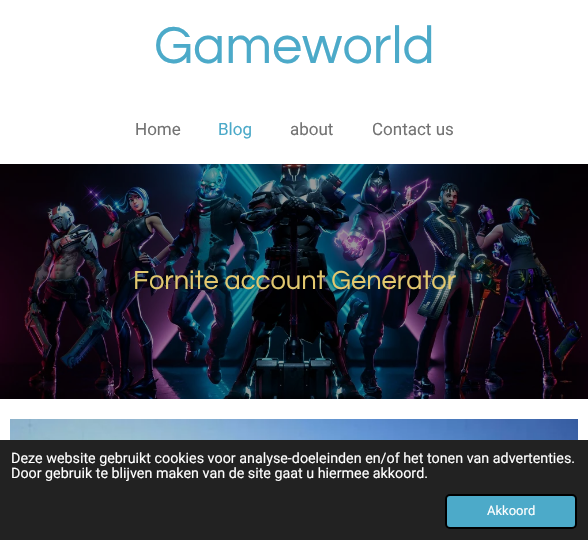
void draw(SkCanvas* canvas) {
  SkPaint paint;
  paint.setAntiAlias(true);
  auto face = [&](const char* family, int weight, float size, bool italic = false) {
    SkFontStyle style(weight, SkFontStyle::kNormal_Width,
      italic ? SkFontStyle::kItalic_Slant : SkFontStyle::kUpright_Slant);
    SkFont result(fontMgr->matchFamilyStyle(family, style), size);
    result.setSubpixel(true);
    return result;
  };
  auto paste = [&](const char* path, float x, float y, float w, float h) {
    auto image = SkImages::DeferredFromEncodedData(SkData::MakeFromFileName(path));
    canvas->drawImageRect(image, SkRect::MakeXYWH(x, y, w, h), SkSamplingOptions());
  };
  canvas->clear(0xffffffff);
  paste("img/1.png", 0, 164, 588, 235);
  paste("img/2.png", 10, 419, 568, 21);
  paint.setColor(0xff222222);
  canvas->drawRect(SkRect::MakeXYWH(0, 440, 588, 100), paint);
  paint.setColor(0xff4caac9);
  canvas->drawRoundRect(SkRect::MakeXYWH(446, 495, 130, 33), 4, 4, paint);
  paint.setStroke(true);
  paint.setStrokeWidth(2);
  paint.setColor(0xff000000);
  canvas->drawRoundRect(SkRect::MakeXYWH(446, 495, 130, 33), 4, 4, paint);
  auto f0 = face("Questrial", 400, 54);
  paint.setStroke(false);
  paint.setColor(0xff4caac9);
  canvas->drawString("Gameworld", 154, 63, f0, paint);
  auto f1 = face("Roboto", 400, 17);
  paint.setColor(0xff737373);
  canvas->drawString("Home", 135, 135, f1, paint);
  paint.setColor(0xff4caac9);
  canvas->drawString("Blog", 218, 135, f1, paint);
  paint.setColor(0xff737373);
  canvas->drawString("about", 290, 135, f1, paint);
  canvas->drawString("Contact us", 372, 135, f1, paint);
  auto f2 = face("Questrial", 400, 27.25f);
  paint.setColor(0xffe2c86f);
  canvas->drawString("Fornite account Generator", 133, 289, f2, paint);
  auto f3 = face("Roboto", 400, 14.3f);
  paint.setColor(0xffffffff);
  canvas->drawString("Deze website gebruikt cookies voor analyse-doeleinden en/of het tonen van advertenties.", 11, 463, f3, paint);
  canvas->drawString("Door gebruik te blijven maken van de site gaat u hiermee akkoord.", 11, 478, f3, paint);
  auto f4 = face("Roboto", 400, 13);
  canvas->drawString("Akkoord", 487, 515, f4, paint);
}
